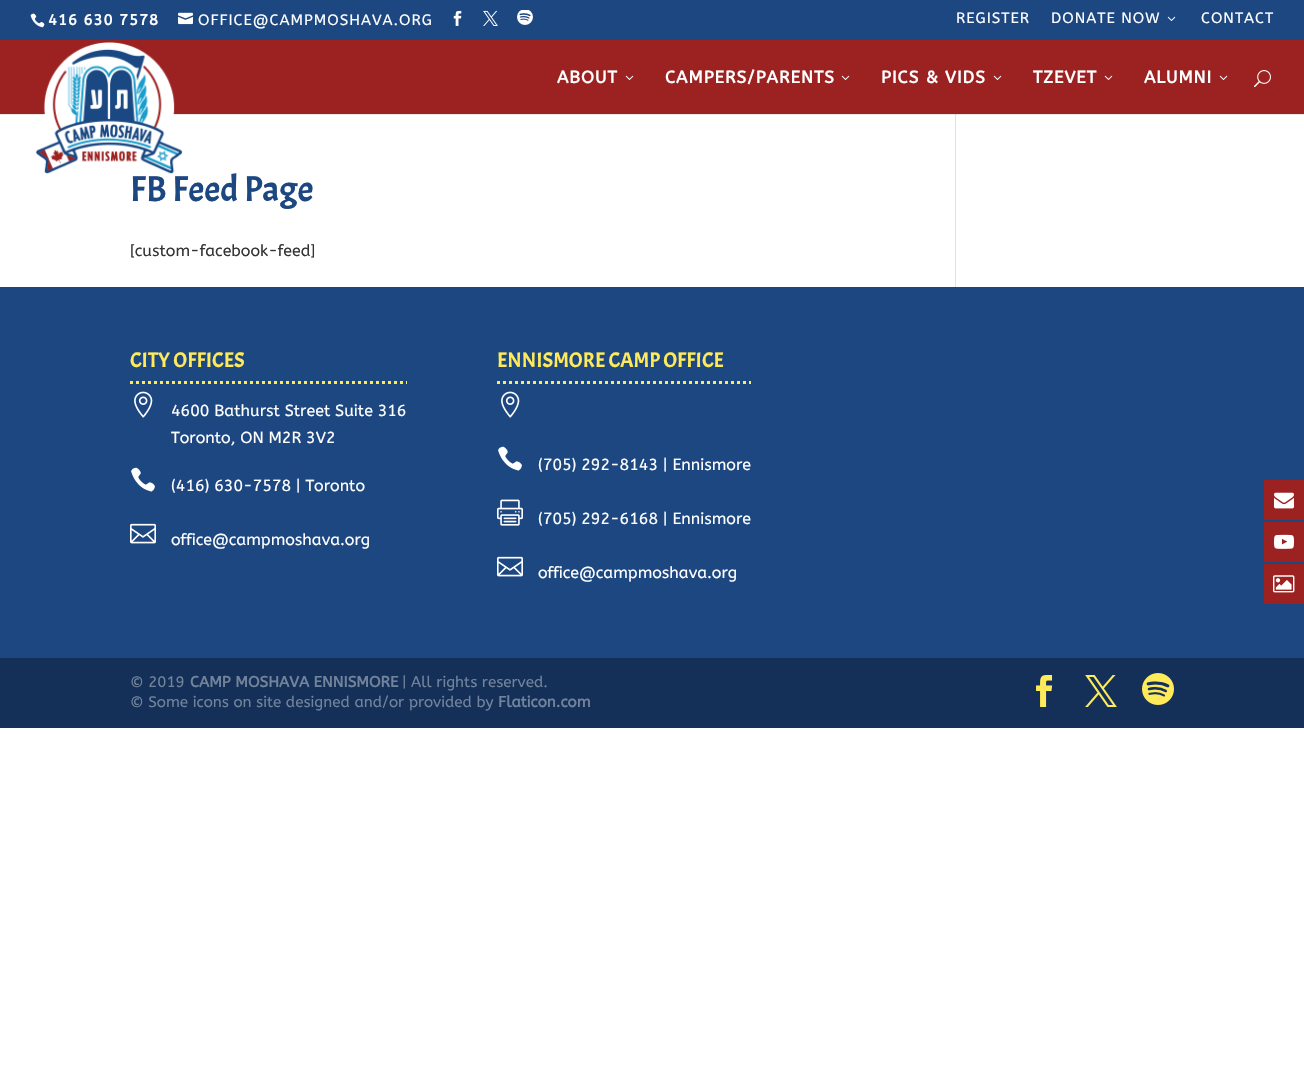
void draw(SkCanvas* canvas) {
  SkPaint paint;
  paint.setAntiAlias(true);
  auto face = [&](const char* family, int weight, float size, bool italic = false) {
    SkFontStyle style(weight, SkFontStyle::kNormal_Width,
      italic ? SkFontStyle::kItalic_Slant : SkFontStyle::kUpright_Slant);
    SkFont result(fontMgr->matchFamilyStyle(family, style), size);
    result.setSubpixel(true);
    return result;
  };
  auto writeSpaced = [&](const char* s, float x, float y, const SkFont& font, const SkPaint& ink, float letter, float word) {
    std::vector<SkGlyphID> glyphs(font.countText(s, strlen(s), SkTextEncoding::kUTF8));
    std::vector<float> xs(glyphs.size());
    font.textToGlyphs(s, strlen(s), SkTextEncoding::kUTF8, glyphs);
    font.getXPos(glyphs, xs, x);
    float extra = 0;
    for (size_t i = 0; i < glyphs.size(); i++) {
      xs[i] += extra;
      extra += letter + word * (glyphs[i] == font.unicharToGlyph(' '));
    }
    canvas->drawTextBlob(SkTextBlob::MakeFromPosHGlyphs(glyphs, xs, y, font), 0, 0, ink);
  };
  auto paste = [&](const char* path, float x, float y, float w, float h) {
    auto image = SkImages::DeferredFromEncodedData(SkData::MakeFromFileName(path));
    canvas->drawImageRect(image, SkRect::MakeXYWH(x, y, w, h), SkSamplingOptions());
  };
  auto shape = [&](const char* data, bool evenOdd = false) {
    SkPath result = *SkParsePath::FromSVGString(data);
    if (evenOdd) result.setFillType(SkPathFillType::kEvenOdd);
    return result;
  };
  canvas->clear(0xffffffff);
  paint.setColor(0xffe6e6e6);
  canvas->drawRect(SkRect::MakeXYWH(0, 114, 1304, 1), paint);
  paint.setColor(0xff1d4781);
  canvas->drawRect(SkRect::MakeXYWH(0, 0, 1304, 40), paint);
  paste("img/1.png", 30, 13, 15, 15);
  paste("img/2.png", 178, 12, 15, 13);
  paste("img/3.png", 453, 10, 9, 16);
  paste("img/4.png", 483, 10, 15, 16);
  paste("img/5.png", 517, 10, 16, 15);
  paste("img/6.png", 1167, 16, 9, 5);
  paint.setColor(0xffe2e2e2);
  canvas->drawRect(SkRect::MakeXYWH(955, 113, 1, 174), paint);
  paint.setColor(0xff9c2121);
  canvas->drawRect(SkRect::MakeXYWH(0, 40, 1304, 74), paint);
  paste("img/8.png", 625, 75, 9, 5);
  paste("img/8.png", 841, 75, 9, 5);
  paste("img/8.png", 993, 75, 9, 5);
  paste("img/8.png", 1104, 75, 9, 5);
  paste("img/8.png", 1219, 75, 9, 5);
  paste("img/9.png", 1254, 70, 17, 18);
  paint.setColor(0xffcbcbcb);
  canvas->drawRect(SkRect::MakeXYWH(955, 114, 1, 1), paint);
  paint.setColor(0xff1d4781);
  canvas->drawRect(SkRect::MakeXYWH(0, 287, 1304, 371), paint);
  paint.setStroke(true);
  paint.setStrokeWidth(3);
  paint.setColor(0xffffea5a);
  paint.setPathEffect(SkDashPathEffect::Make({{3, 3}}, 0));
  canvas->drawPath(shape("M130 382.5H407"), paint);
  paint.setPathEffect(nullptr);
  paste("img/10.png", 134, 391, 19, 27);
  paste("img/11.png", 131, 467, 24, 25);
  paste("img/12.png", 130, 523, 26, 21);
  paint.setPathEffect(SkDashPathEffect::Make({{3, 3}}, 0));
  canvas->drawPath(shape("M497 382.5H751"), paint);
  paint.setPathEffect(nullptr);
  paste("img/10.png", 501, 391, 19, 27);
  paste("img/11.png", 498, 446, 24, 25);
  paste("img/13.png", 497, 499, 26, 27);
  paste("img/12.png", 497, 556, 26, 21);
  paint.setStroke(false);
  paint.setColor(0xff143058);
  canvas->drawRect(SkRect::MakeXYWH(0, 658, 1304, 70), paint);
  paste("img/14.png", 1036, 675, 17, 32);
  paste("img/15.png", 1085, 675, 32, 32);
  paste("img/16.png", 1142, 673, 32, 32);
  paint.setColor(0xff9c2121);
  canvas->drawRect(SkRect::MakeXYWH(1264, 480, 40, 40), paint);
  paste("img/17.png", 1274, 492, 20, 17);
  canvas->drawRect(SkRect::MakeXYWH(1264, 522, 40, 40), paint);
  paste("img/18.png", 1274, 534, 20, 15);
  canvas->drawRect(SkRect::MakeXYWH(1264, 564, 40, 40), paint);
  paste("img/19.png", 1273, 575, 22, 18);
  auto f0 = face("ABeeZee", 700, 15);
  paint.setColor(0xffffffff);
  writeSpaced("416 630 7578", 48, 25, f0, paint, 1, 0);
  auto f1 = face("ABeeZee", 400, 15);
  {
    const struct { const char* s; float x, y; } items[] = {
      {"OFFICE@CAMPMOSHAVA.ORG", 198, 25},
      {"REGISTER", 956, 23},
      {"DONATE NOW", 1051, 23},
      {"CONTACT", 1201, 23},
    };
    for (auto [s, x, y] : items) {
      writeSpaced(s, x, y, f1, paint, 1, 0);
    }
  }
  auto f2 = face("ABeeZee", 700, 17);
  {
    const struct { const char* s; float x, y; } items[] = {
      {"ABOUT", 557, 83},
      {"CAMPERS/PARENTS", 665, 83},
      {"PICS & VIDS", 881, 83},
      {"TZEVET", 1033, 83},
      {"ALUMNI", 1144, 83},
    };
    for (auto [s, x, y] : items) {
      writeSpaced(s, x, y, f2, paint, 1, 0);
    }
  }
  auto f3 = face("Acme", 400, 36);
  paint.setColor(0xff1d4781);
  canvas->drawString("FB Feed Page", 130, 201, f3, paint);
  paste("img/7.png", 36, 42, 147, 132);
  auto f4 = face("ABeeZee", 400, 16);
  paint.setColor(0xff333333);
  canvas->drawString("[custom-facebook-feed]", 130, 256, f4, paint);
  auto f5 = face("Acme", 400, 21);
  paint.setColor(0xffffea5a);
  canvas->drawString("CITY OFFICES", 130, 367, f5, paint);
  paint.setColor(0xffffffff);
  {
    const struct { const char* s; float x, y; } items[] = {
      {"4600 Bathurst Street Suite 316", 171, 416},
      {"Toronto, ON M2R 3V2", 171, 443},
      {"(416) 630-7578 | Toronto", 171, 491},
      {"office@campmoshava.org", 171, 545},
    };
    for (auto [s, x, y] : items) {
      canvas->drawString(s, x, y, f4, paint);
    }
  }
  paint.setColor(0xffffea5a);
  canvas->drawString("ENNISMORE CAMP OFFICE", 497, 367, f5, paint);
  paint.setColor(0xffffffff);
  {
    const struct { const char* s; float x, y; } items[] = {
      {"(705) 292-8143 | Ennismore", 538, 470},
      {"(705) 292-6168 | Ennismore", 538, 524},
      {"office@campmoshava.org", 538, 578},
    };
    for (auto [s, x, y] : items) {
      canvas->drawString(s, x, y, f4, paint);
    }
  }
  auto f6 = face("ABeeZee", 400, 15.2f);
  paint.setColor(0xff72839b);
  canvas->drawString("© 2019", 130, 687, f6, paint);
  auto f7 = face("ABeeZee", 700, 15.2f);
  canvas->drawString("CAMP MOSHAVA ENNISMORE", 190, 687, f7, paint);
  canvas->drawString("| All rights reserved.", 402, 687, f6, paint);
  canvas->drawString("© Some icons on site designed and/or provided by", 130, 707, f6, paint);
  canvas->drawString("Flaticon.com", 498, 707, f7, paint);
}
